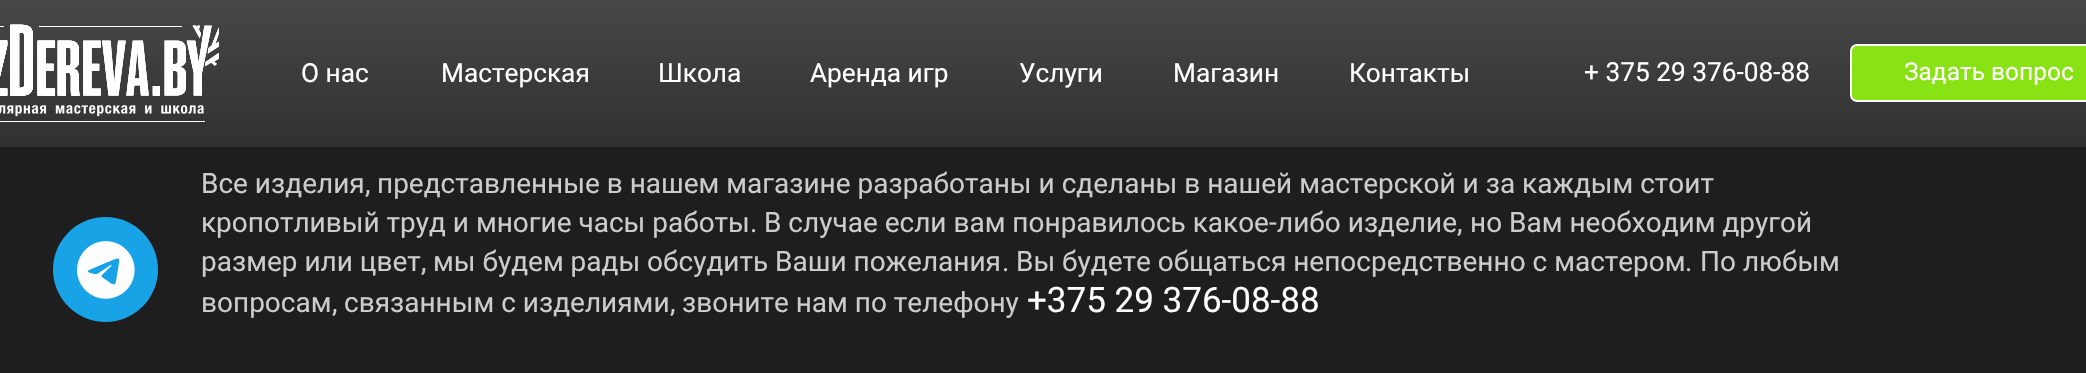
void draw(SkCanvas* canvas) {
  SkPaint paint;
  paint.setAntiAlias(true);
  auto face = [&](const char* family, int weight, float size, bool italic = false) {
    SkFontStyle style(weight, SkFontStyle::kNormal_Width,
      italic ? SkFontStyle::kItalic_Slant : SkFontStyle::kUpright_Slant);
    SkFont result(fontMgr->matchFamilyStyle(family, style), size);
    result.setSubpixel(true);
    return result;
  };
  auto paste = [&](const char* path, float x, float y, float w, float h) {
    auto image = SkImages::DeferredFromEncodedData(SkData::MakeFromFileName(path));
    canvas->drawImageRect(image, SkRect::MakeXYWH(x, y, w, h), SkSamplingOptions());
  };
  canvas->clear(0xff1f1e1e);
  paint.setColor(0xff18a3e6);
  canvas->drawCircle(105.5f, 269.5f, 52.5f, paint);
  paste("img/1.png", 77, 241, 58, 58);
  paint.setColor(0xff060606);
  canvas->drawRect(SkRect::MakeXYWH(0, 0, 2086, 147), paint);
  paste("img/2.png", 0, 0, 2086, 147);
  paste("img/3.png", 0, 24, 219, 98);
  paint.setColor(0xff89e314);
  canvas->drawRoundRect(SkRect::MakeXYWH(1851, 45, 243, 56), 6, 6, paint);
  paint.setStroke(true);
  paint.setStrokeWidth(2);
  paint.setColor(0xffffffff);
  canvas->drawRoundRect(SkRect::MakeXYWH(1851, 45, 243, 56), 6, 6, paint);
  auto f0 = face("Roboto", 400, 26.25f);
  paint.setStroke(false);
  {
    const struct { const char* s; float x, y; } items[] = {
      {"О нас", 301, 82},
      {"Мастерская", 441, 82},
      {"Школа", 658, 82},
      {"Аренда игр", 810, 82},
      {"Услуги", 1019, 82},
      {"Магазин", 1173, 82},
      {"Контакты", 1349, 82},
    };
    for (auto [s, x, y] : items) {
      canvas->drawString(s, x, y, f0, paint);
    }
  }
  auto f1 = face("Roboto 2", 400, 26.25f);
  canvas->drawString("+ 375 29 376-08-88", 1584, 81, f1, paint);
  auto f2 = face("Roboto", 400, 24.5f);
  canvas->drawString("Задать вопрос", 1904, 80, f2, paint);
  auto f3 = face("Roboto", 400, 28);
  paint.setColor(0xffcccccc);
  canvas->drawString("Все изделия", 201, 193, f3, paint);
  auto f4 = face("Roboto 2", 400, 28);
  canvas->drawString(",", 365, 193, f4, paint);
  {
    const struct { const char* s; float x, y; } items[] = {
      {"представленные в нашем магазине разработаны и сделаны в нашей мастерской и за каждым стоит", 377, 193},
      {"кропотливый труд и многие часы работы", 201, 232},
      {"В случае если вам понравилось какое", 764, 232},
    };
    for (auto [s, x, y] : items) {
      canvas->drawString(s, x, y, f3, paint);
    }
  }
  canvas->drawString("-", 1269, 232, f4, paint);
  canvas->drawString("либо изделие", 1277, 232, f3, paint);
  canvas->drawString("но Вам необходим другой", 1470, 232, f3, paint);
  canvas->drawString(".", 750, 232, f4, paint);
  canvas->drawString(",", 1457, 232, f4, paint);
  canvas->drawString("размер или цвет", 201, 271, f3, paint);
  canvas->drawString(",", 421, 271, f4, paint);
  canvas->drawString("мы будем рады обсудить Ваши пожелания", 433, 271, f3, paint);
  canvas->drawString(".", 1002, 271, f4, paint);
  canvas->drawString("Вы будете общаться непосредственно с мастером", 1016, 271, f3, paint);
  canvas->drawString(".", 1685, 271, f4, paint);
  canvas->drawString("По любым", 1700, 271, f3, paint);
  canvas->drawString("вопросам", 201, 312, f3, paint);
  canvas->drawString(",", 332, 312, f4, paint);
  canvas->drawString("связанным с изделиями", 344, 312, f3, paint);
  canvas->drawString(",", 670, 312, f4, paint);
  canvas->drawString("звоните нам по телефону", 682, 312, f3, paint);
  auto f5 = face("Roboto 2", 400, 35);
  paint.setColor(0xffffffff);
  canvas->drawString("+375 29 376-08-88", 1027, 312, f5, paint);
}
